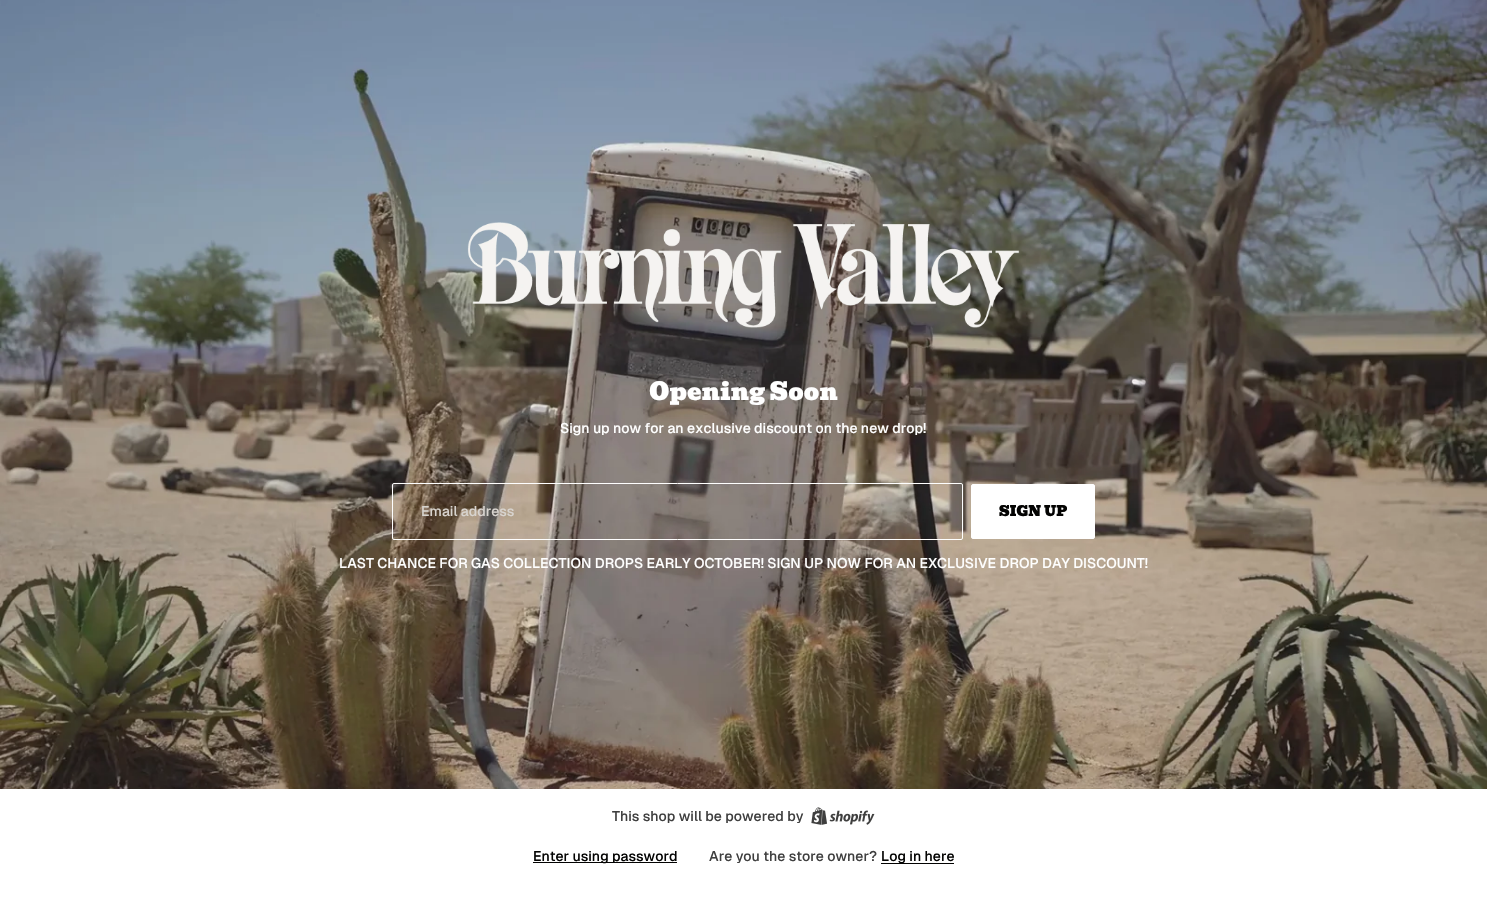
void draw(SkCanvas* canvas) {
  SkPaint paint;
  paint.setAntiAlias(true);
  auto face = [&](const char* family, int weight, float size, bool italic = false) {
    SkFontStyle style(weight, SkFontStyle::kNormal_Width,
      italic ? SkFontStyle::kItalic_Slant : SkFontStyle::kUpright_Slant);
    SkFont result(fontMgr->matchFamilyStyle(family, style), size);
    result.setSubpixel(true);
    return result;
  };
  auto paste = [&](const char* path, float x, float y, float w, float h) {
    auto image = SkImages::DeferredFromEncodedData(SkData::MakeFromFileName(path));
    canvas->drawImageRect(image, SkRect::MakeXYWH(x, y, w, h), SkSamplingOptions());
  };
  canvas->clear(0xffffffff);
  paste("img/1.png", 0, 0, 1487, 789);
  paste("img/2.png", 467, 222, 553, 106);
  paint.setStroke(true);
  paint.setStrokeWidth(1);
  paint.setColor(0xffffffff);
  canvas->drawRoundRect(SkRect::MakeXYWH(392.5f, 483.5f, 570, 56), 1.5f, 1.5f, paint);
  paint.setStroke(false);
  canvas->drawRoundRect(SkRect::MakeXYWH(971.5f, 484.5f, 123, 54), 1.5f, 1.5f, paint);
  paint.setStroke(true);
  canvas->drawRoundRect(SkRect::MakeXYWH(971.5f, 484.5f, 123, 54), 1.5f, 1.5f, paint);
  paste("img/3.png", 811, 807, 64, 18);
  paint.setStroke(false);
  paint.setColor(0xff030302);
  canvas->drawRect(SkRect::MakeXYWH(533, 862, 144, 1), paint);
  canvas->drawRect(SkRect::MakeXYWH(881, 863, 73, 1), paint);
  auto f0 = face("Bevan", 400, 24);
  paint.setColor(0xffffffff);
  canvas->drawString("Opening Soon", 649, 400, f0, paint);
  auto f1 = face("Geist", 500, 14);
  canvas->drawString("Sign up now for an exclusive discount on the new drop!", 560, 433, f1, paint);
  paint.setColor(0xffd8d4cf);
  canvas->drawString("Email address", 421, 516, f1, paint);
  auto f2 = face("Bevan", 400, 14);
  paint.setColor(0xff030302);
  canvas->drawString("SIGN UP", 999, 516, f2, paint);
  paint.setColor(0xffffffff);
  canvas->drawString("LAST CHANCE FOR GAS COLLECTION DROPS EARLY OCTOBER! SIGN UP NOW FOR AN EXCLUSIVE DROP DAY DISCOUNT!", 339, 568, f1, paint);
  paint.setColor(0xff3f3f3f);
  canvas->drawString("This shop will be powered by", 612, 821, f1, paint);
  paint.setColor(0xff030302);
  canvas->drawString("Enter using password", 533, 861, f1, paint);
  paint.setColor(0xff3f3f3f);
  canvas->drawString("Are you the store owner?", 709, 861, f1, paint);
  paint.setColor(0xff030302);
  canvas->drawString("Log in here", 881, 861, f1, paint);
}
